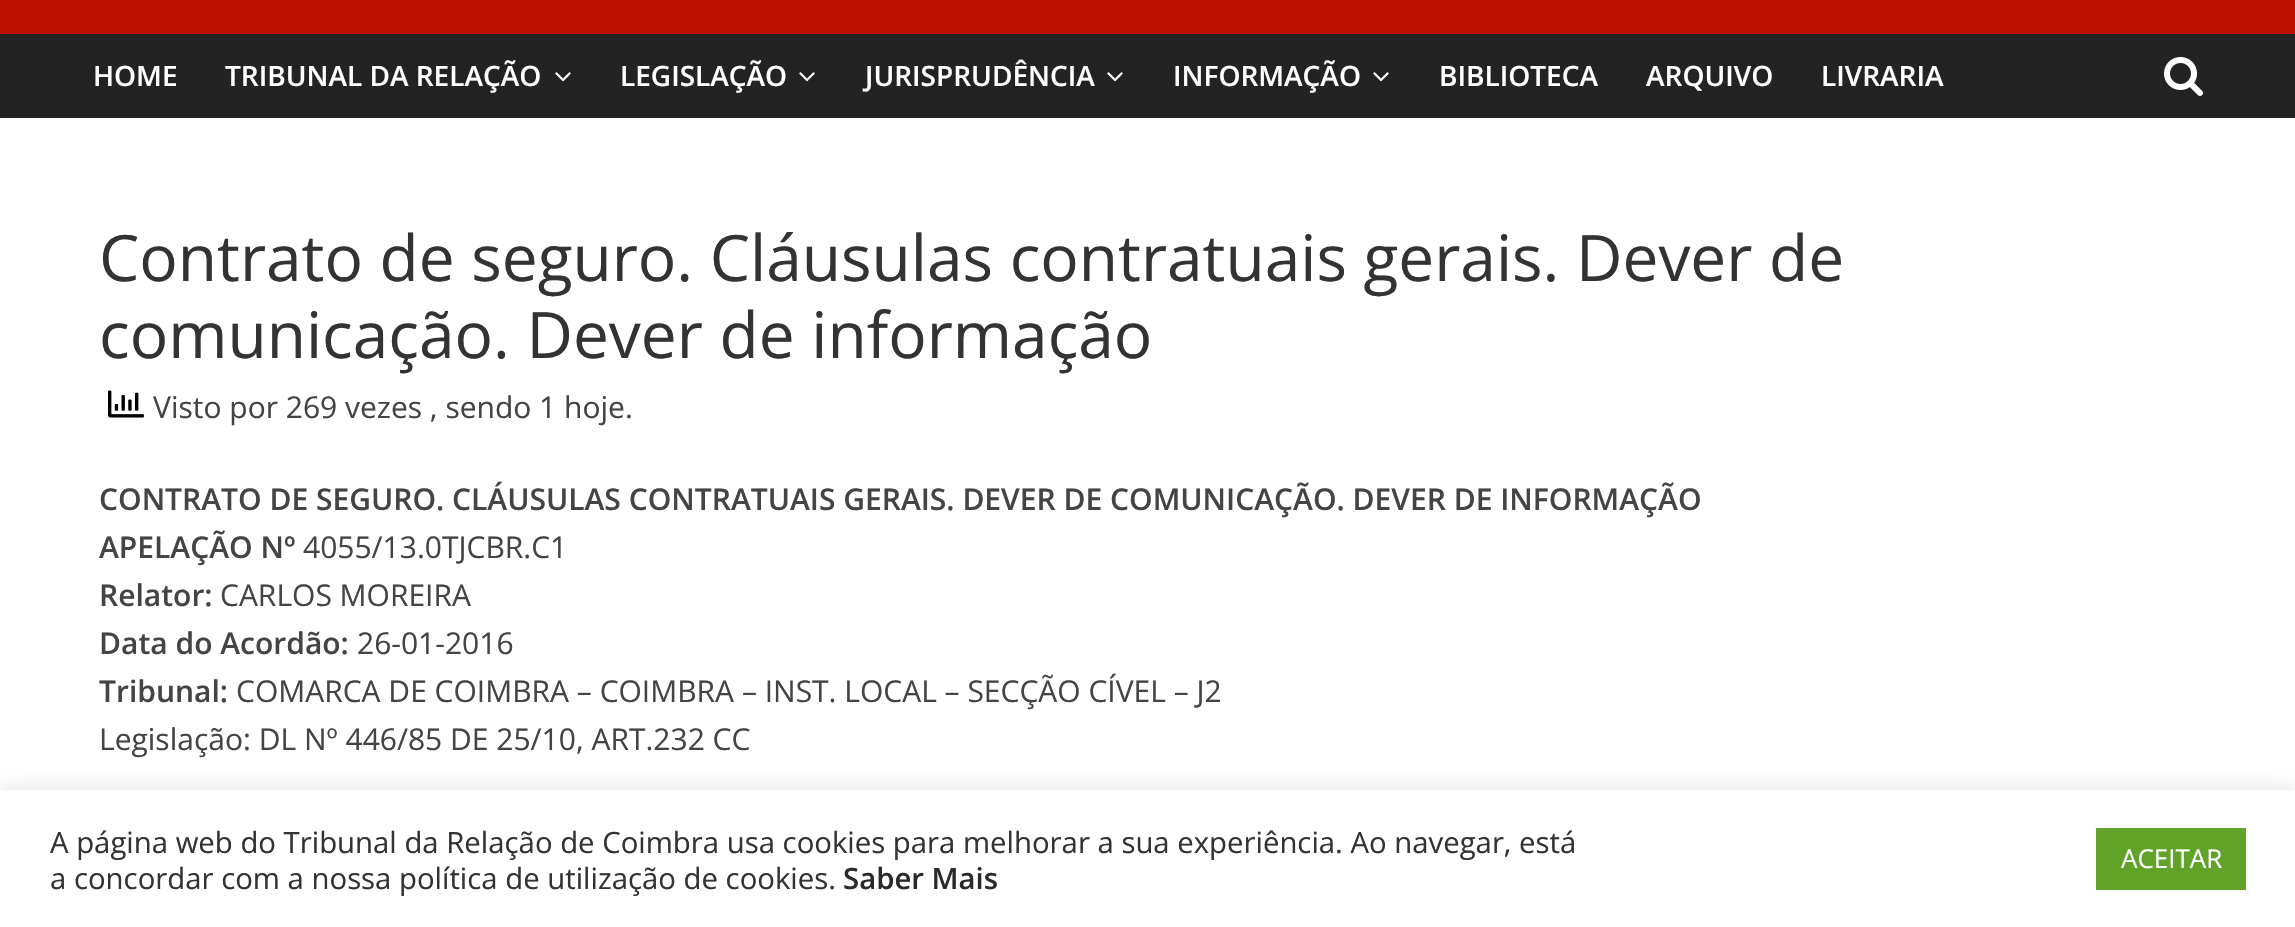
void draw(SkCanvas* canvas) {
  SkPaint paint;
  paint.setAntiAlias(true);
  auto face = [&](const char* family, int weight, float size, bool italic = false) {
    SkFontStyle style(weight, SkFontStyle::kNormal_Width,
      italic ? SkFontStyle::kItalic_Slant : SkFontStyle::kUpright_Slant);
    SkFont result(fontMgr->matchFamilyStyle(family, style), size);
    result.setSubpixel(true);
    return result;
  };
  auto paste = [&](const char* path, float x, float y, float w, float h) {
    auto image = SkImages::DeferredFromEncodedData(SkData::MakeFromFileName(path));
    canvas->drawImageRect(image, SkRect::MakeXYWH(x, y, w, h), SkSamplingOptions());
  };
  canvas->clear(0xffbf1000);
  paint.setColor(0xff232323);
  canvas->drawRect(SkRect::MakeXYWH(0, 34, 2295, 84), paint);
  paste("img/1.png", 555, 72, 16, 10);
  paste("img/1.png", 799, 72, 16, 10);
  paste("img/1.png", 1107, 72, 16, 10);
  paste("img/1.png", 1373, 72, 16, 10);
  paste("img/2.png", 2164, 57, 39, 39);
  paint.setColor(0xffffffff);
  canvas->drawRect(SkRect::MakeXYWH(0, 118, 2295, 672), paint);
  paste("img/3.png", 108, 390, 36, 28);
  paint.setColor(0x4dacabab);
  paint.setMaskFilter(SkMaskFilter::MakeBlur(kNormal_SkBlurStyle, 10));
  canvas->drawRect(SkRect::MakeXYWH(0, 788, 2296, 138), paint);
  paint.setMaskFilter(nullptr);
  paint.setColor(0xffffffff);
  canvas->drawRect(SkRect::MakeXYWH(0, 790, 2295, 137), paint);
  paint.setColor(0xff61a229);
  canvas->drawRect(SkRect::MakeXYWH(2096, 828, 150, 62), paint);
  auto f0 = face("Open Sans", 600, 28);
  paint.setColor(0xffffffff);
  {
    const struct { const char* s; float x, y; } items[] = {
      {"HOME", 93, 86},
      {"TRIBUNAL DA RELAÇÃO", 225, 86},
      {"LEGISLAÇÃO", 620, 86},
      {"JURISPRUDÊNCIA", 865, 86},
      {"INFORMAÇÃO", 1173, 86},
      {"BIBLIOTECA", 1439, 86},
      {"ARQUIVO", 1646, 86},
      {"LIVRARIA", 1821, 86},
    };
    for (auto [s, x, y] : items) {
      canvas->drawString(s, x, y, f0, paint);
    }
  }
  auto f1 = face("Open Sans", 400, 64);
  paint.setColor(0xff333333);
  canvas->drawString("Contrato de seguro. Cláusulas contratuais gerais. Dever de", 99, 281, f1, paint);
  canvas->drawString("comunicação. Dever de informação", 99, 358, f1, paint);
  auto f2 = face("Open Sans", 400, 30);
  paint.setColor(0xff444444);
  canvas->drawString("Visto por 269 vezes , sendo 1 hoje.", 153, 418, f2, paint);
  auto f3 = face("Open Sans", 600, 30);
  canvas->drawString("CONTRATO DE SEGURO. CLÁUSULAS CONTRATUAIS GERAIS. DEVER DE COMUNICAÇÃO. DEVER DE INFORMAÇÃO", 99, 510, f3, paint);
  canvas->drawString("APELAÇÃO Nº", 99, 558, f3, paint);
  canvas->drawString("4055/13.0TJCBR.C1", 303, 558, f2, paint);
  canvas->drawString("Relator:", 99, 606, f3, paint);
  canvas->drawString("CARLOS MOREIRA", 220, 606, f2, paint);
  canvas->drawString("Data do Acordão:", 99, 654, f3, paint);
  canvas->drawString("26-01-2016", 357, 654, f2, paint);
  canvas->drawString("Tribunal:", 99, 702, f3, paint);
  canvas->drawString("COMARCA DE COIMBRA – COIMBRA – INST. LOCAL – SECÇÃO CÍVEL – J2", 236, 702, f2, paint);
  canvas->drawString("Legislação: DL Nº 446/85 DE 25/10, ART.232 CC", 99, 750, f2, paint);
  auto f4 = face("Open Sans", 400, 29.33f);
  paint.setColor(0xff333333);
  canvas->drawString("A página web do Tribunal da Relação de Coimbra usa cookies para melhorar a sua experiência. Ao navegar, está", 50, 853, f4, paint);
  canvas->drawString("a concordar com a nossa política de utilização de cookies.", 50, 889, f4, paint);
  auto f5 = face("Open Sans", 600, 29.33f);
  paint.setColor(0xff2a2a2a);
  canvas->drawString("Saber Mais", 843, 889, f5, paint);
  auto f6 = face("Open Sans", 400, 26);
  paint.setColor(0xffffffff);
  canvas->drawString("ACEITAR", 2121, 868, f6, paint);
}
